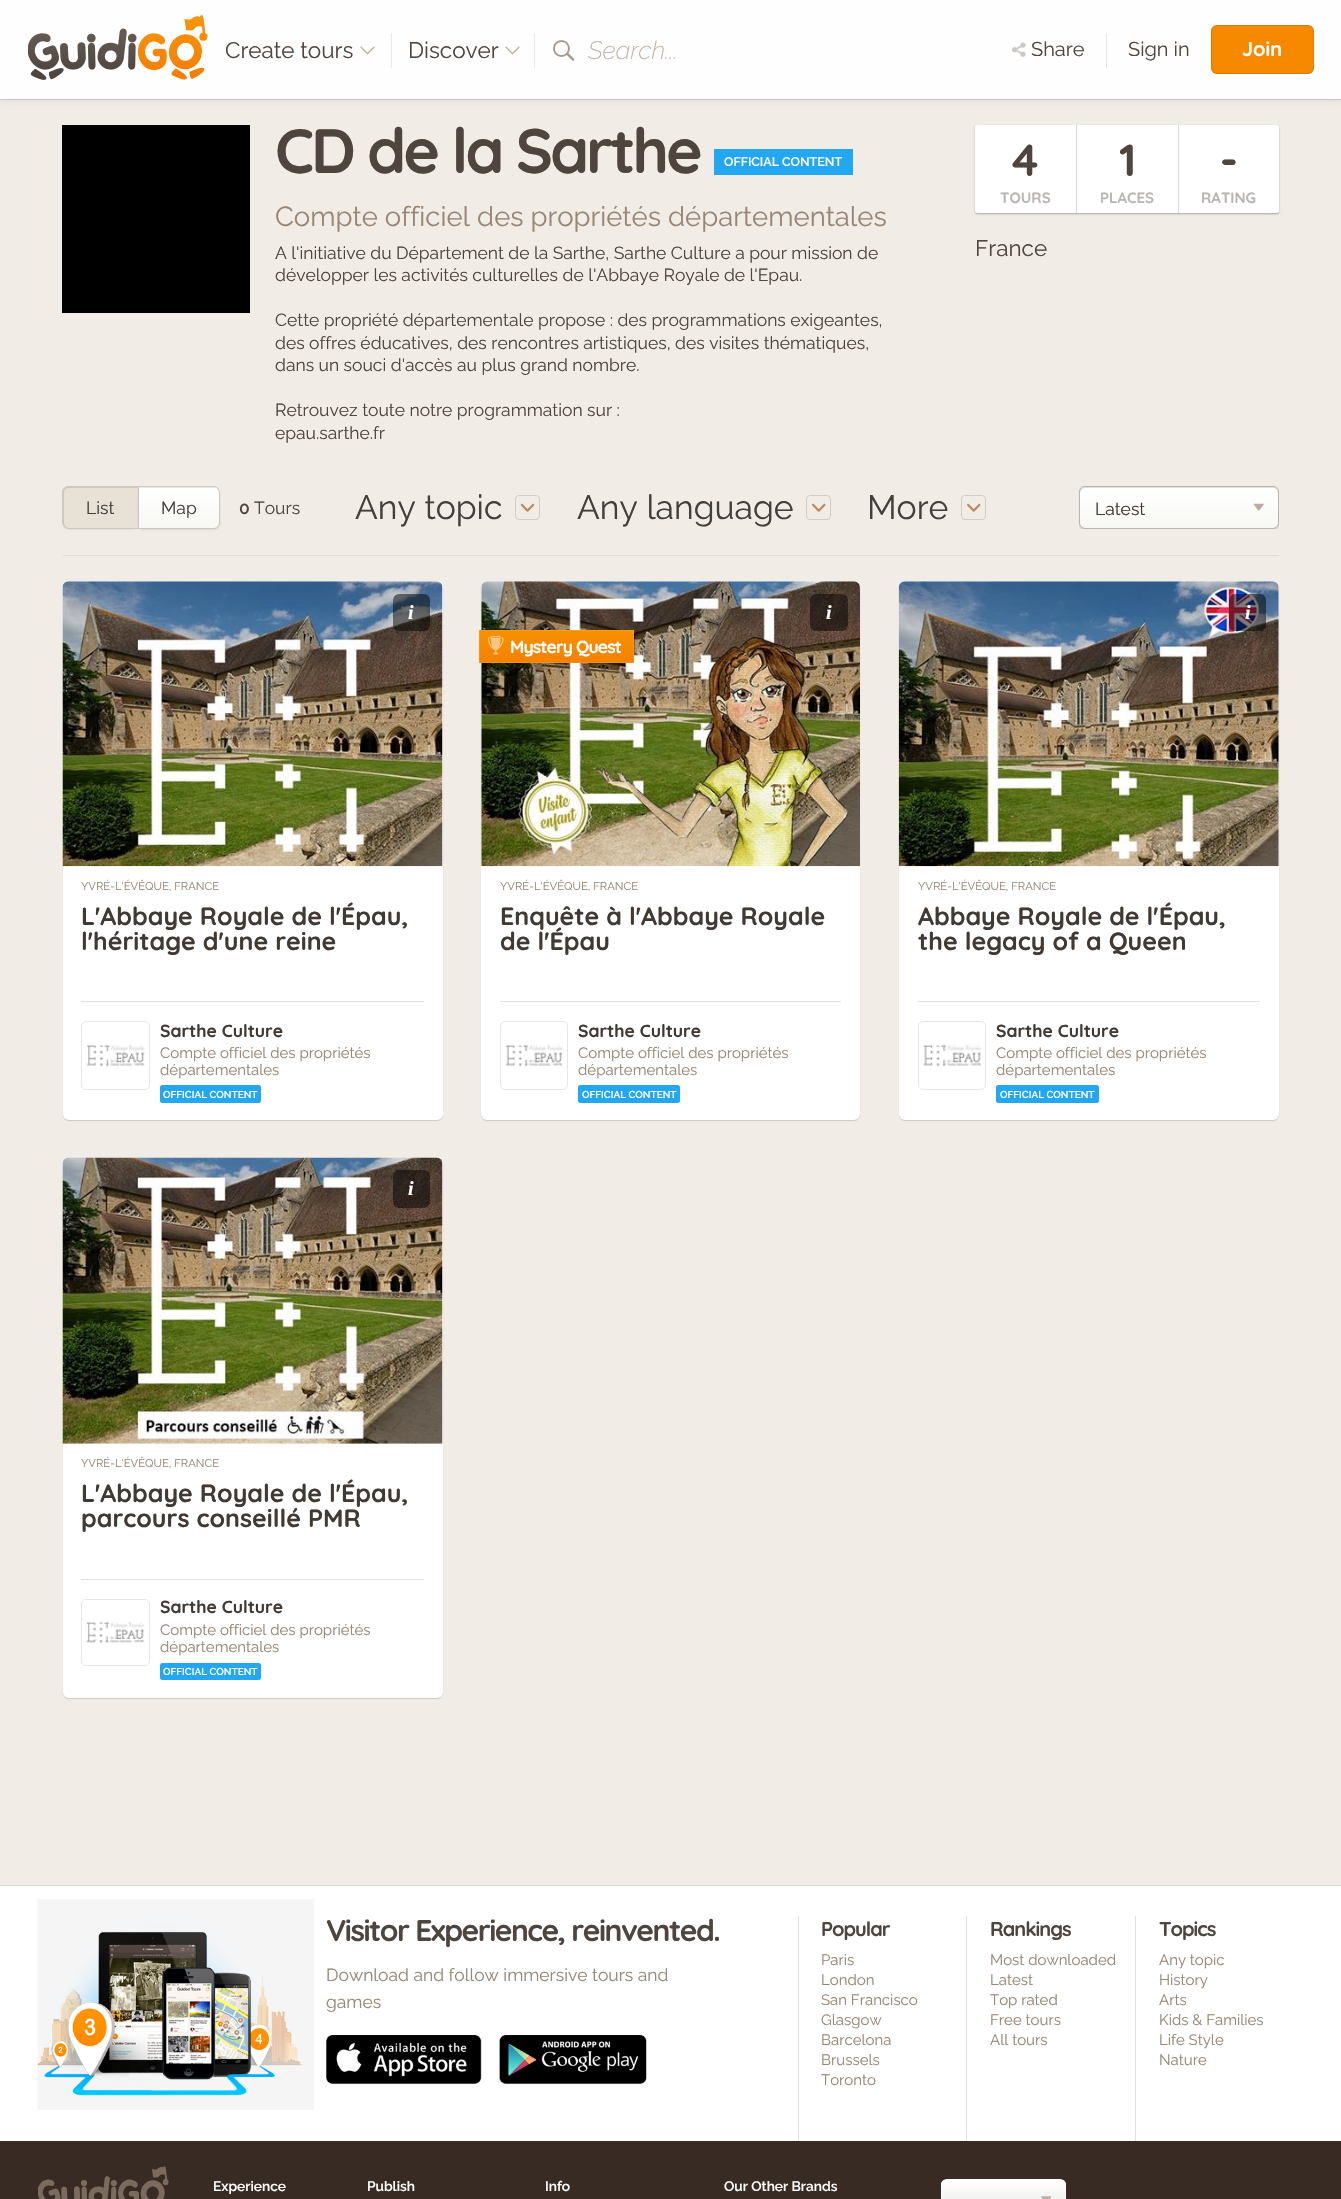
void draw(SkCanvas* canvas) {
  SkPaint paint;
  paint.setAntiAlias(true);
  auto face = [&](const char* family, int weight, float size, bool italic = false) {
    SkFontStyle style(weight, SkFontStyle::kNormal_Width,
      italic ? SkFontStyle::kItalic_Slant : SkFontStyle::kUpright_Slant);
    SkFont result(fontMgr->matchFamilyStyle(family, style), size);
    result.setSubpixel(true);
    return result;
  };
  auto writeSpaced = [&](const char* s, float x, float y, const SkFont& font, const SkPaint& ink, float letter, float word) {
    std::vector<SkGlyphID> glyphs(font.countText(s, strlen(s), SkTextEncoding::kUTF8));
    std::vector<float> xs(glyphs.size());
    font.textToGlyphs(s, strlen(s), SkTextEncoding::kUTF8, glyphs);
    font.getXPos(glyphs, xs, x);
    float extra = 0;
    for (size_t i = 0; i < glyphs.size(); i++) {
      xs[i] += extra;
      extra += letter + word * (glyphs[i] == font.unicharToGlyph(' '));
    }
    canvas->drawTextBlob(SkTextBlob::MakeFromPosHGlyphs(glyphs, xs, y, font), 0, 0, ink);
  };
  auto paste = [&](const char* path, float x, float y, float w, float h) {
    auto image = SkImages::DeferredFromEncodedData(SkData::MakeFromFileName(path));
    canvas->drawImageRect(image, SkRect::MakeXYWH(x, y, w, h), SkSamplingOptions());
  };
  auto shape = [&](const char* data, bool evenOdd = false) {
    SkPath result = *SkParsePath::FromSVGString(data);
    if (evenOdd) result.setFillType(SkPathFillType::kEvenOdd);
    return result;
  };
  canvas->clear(0xfff1ede6);
  paint.setColor(0x12000000);
  paint.setMaskFilter(SkMaskFilter::MakeBlur(kNormal_SkBlurStyle, 3));
  canvas->drawRect(SkRect::MakeXYWH(0, 1, 1341, 100), paint);
  paint.setMaskFilter(nullptr);
  paint.setColor(0xfffffefe);
  canvas->drawRect(SkRect::MakeXYWH(0, 0, 1341, 99), paint);
  paint.setColor(0xffc8c4c1);
  canvas->drawRect(SkRect::MakeXYWH(0, 99, 1341, 1), paint);
  paste("img/1.png", 28, 15, 180, 65);
  paste("img/2.png", 360, 46, 15, 9);
  paint.setColor(0xffeee9e7);
  canvas->drawRect(SkRect::MakeXYWH(391, 33, 1, 35), paint);
  paste("img/2.png", 505, 46, 15, 9);
  canvas->drawRect(SkRect::MakeXYWH(534, 33, 1, 35), paint);
  paste("img/3.png", 553, 40, 22, 21);
  paint.setColor(0xffebe5e2);
  canvas->drawRect(SkRect::MakeXYWH(1106, 33, 1, 35), paint);
  paste("img/4.png", 1011, 42, 15, 15);
  paint.setColor(0xfff78901);
  canvas->drawRoundRect(SkRect::MakeXYWH(1211, 25, 103, 49), 6, 6, paint);
  paint.setStroke(true);
  paint.setStrokeWidth(1);
  paint.setColor(0x1a000000);
  canvas->drawRoundRect(SkRect::MakeXYWH(1211.5f, 25.5f, 102, 48), 5.5f, 5.5f, paint);
  paint.setStroke(false);
  paint.setColor(0xff000000);
  canvas->drawRect(SkRect::MakeXYWH(62, 125, 188, 188), paint);
  paint.setColor(0xff23a7f1);
  canvas->drawRect(SkRect::MakeXYWH(714, 149, 139, 26), paint);
  paint.setColor(0x4d000000);
  paint.setMaskFilter(SkMaskFilter::MakeBlur(kNormal_SkBlurStyle, 1));
  canvas->drawRoundRect(SkRect::MakeXYWH(975, 126, 304, 88), 2.5f, 2.5f, paint);
  paint.setMaskFilter(nullptr);
  paint.setColor(0xffffffff);
  canvas->drawRoundRect(SkRect::MakeXYWH(975, 125, 304, 88), 2.5f, 2.5f, paint);
  {
    const struct { float x, y, w, h; SkColor color; } items[] = {
      {1076, 125, 1, 88, 0xffdbd9d8},
      {1178, 125, 1, 88, 0xffdbd9d8},
      {63, 555, 1216, 1, 0xffe0dcd6},
    };
    for (auto [x, y, w, h, color] : items) {
      paint.setColor(color);
      canvas->drawRect(SkRect::MakeXYWH(x, y, w, h), paint);
    }
  }
  paint.setStroke(true);
  paint.setColor(0xffd6cbc3);
  canvas->drawRoundRect(SkRect::MakeXYWH(515.5f, 495.5f, 24, 24), 3.5f, 3.5f, paint);
  paste("img/5.png", 520, 503, 15, 9);
  canvas->drawRoundRect(SkRect::MakeXYWH(806.5f, 495.5f, 24, 24), 3.5f, 3.5f, paint);
  paste("img/6.png", 812, 503, 14, 9);
  canvas->drawRoundRect(SkRect::MakeXYWH(961.5f, 495.5f, 24, 24), 3.5f, 3.5f, paint);
  paste("img/6.png", 967, 503, 14, 9);
  paint.setStroke(false);
  paint.setColor(0x0d000000);
  paint.setMaskFilter(SkMaskFilter::MakeBlur(kNormal_SkBlurStyle, 0.5f));
  canvas->drawRoundRect(SkRect::MakeXYWH(63, 488, 75, 42), 6, 6, paint);
  paint.setMaskFilter(nullptr);
  paint.setColor(0xffe8e1d6);
  canvas->drawPath(shape("M69 488H138V528H69C66 528 64 526 64 523V493C64 490 66 488 69 488Z"), paint);
  paint.setColor(0xffccc8c3);
  canvas->drawPath(shape("M69 486H138V529H69C65 529 62 526 62 522V492C62 489 65 486 69 486ZM69 488H138V528H69C66 528 64 525 64 522V492C64 490 66 488 69 488Z", true), paint);
  paint.setColor(0x1a000000);
  paint.setMaskFilter(SkMaskFilter::MakeBlur(kNormal_SkBlurStyle, 1));
  canvas->drawRoundRect(SkRect::MakeXYWH(138, 488, 82, 42), 6, 6, paint);
  paint.setMaskFilter(nullptr);
  {
    const SkColor colors[] = {0xfff7f7f3, 0xffffffff};
    const float stops[] = {0, 1};
    const SkPoint ends[] = {{179, 528}, {179, 488}};
    paint.setShader(SkGradientShader::MakeLinear(ends, colors, stops, 2, SkTileMode::kClamp));
    paint.setAlpha(255);
  }
  canvas->drawPath(shape("M139 488H214C217 488 219 490 219 493V523C219 526 217 528 214 528H139Z"), paint);
  paint.setStroke(true);
  paint.setShader(nullptr);
  paint.setColor(0xffccc8c3);
  canvas->drawPath(shape("M138.5 486.5H214C217 486.5 219.5 489 219.5 492V523C219.5 526 217 528.5 214 528.5H138.5Z"), paint);
  canvas->save();
  canvas->clipRect(SkRect::MakeXYWH(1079, 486, 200, 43));
  paint.setStroke(false);
  paint.setColor(0x26000000);
  paint.setMaskFilter(SkMaskFilter::MakeBlur(kNormal_SkBlurStyle, 2));
  canvas->drawRoundRect(SkRect::MakeXYWH(1079, 488, 200, 42), 6, 6, paint);
  paint.setMaskFilter(nullptr);
  canvas->restore();
  {
    const SkColor colors[] = {0xfff7f7f3, 0xffffffff};
    const float stops[] = {0, 1};
    const SkPoint ends[] = {{1179, 528}, {1179, 488}};
    paint.setShader(SkGradientShader::MakeLinear(ends, colors, stops, 2, SkTileMode::kClamp));
    paint.setAlpha(255);
  }
  canvas->drawRoundRect(SkRect::MakeXYWH(1080, 488, 198, 40), 5, 5, paint);
  paint.setStroke(true);
  paint.setShader(nullptr);
  paint.setColor(0xffb8b4b0);
  canvas->drawRoundRect(SkRect::MakeXYWH(1079.5f, 486.5f, 199, 42), 5.5f, 5.5f, paint);
  paste("img/7.png", 1253, 503, 11, 8);
  paint.setStroke(false);
  paint.setColor(0xffeeeeee);
  canvas->drawRect(SkRect::MakeXYWH(63, 581, 380, 539), paint);
  paint.setColor(0x26000000);
  paint.setMaskFilter(SkMaskFilter::MakeBlur(kNormal_SkBlurStyle, 0.5f));
  canvas->drawRoundRect(SkRect::MakeXYWH(63, 583, 380, 538), 6, 6, paint);
  paint.setMaskFilter(nullptr);
  paint.setColor(0xffffffff);
  canvas->drawRoundRect(SkRect::MakeXYWH(63, 581, 380, 539), 6, 6, paint);
  paste("img/8.png", 62, 581, 381, 286);
  paint.setColor(0x80000000);
  canvas->drawRoundRect(SkRect::MakeXYWH(393, 594, 37, 37), 6, 6, paint);
  paint.setColor(0xffe0e0e0);
  canvas->drawRect(SkRect::MakeXYWH(81, 1001, 343, 1), paint);
  paint.setStroke(true);
  paint.setColor(0xffe6e6e6);
  canvas->drawRoundRect(SkRect::MakeXYWH(81.5f, 1021.5f, 68, 68), 4.5f, 4.5f, paint);
  paste("img/9.png", 86, 1044, 59, 23);
  paint.setStroke(false);
  paint.setColor(0xff23a7f1);
  canvas->drawRoundRect(SkRect::MakeXYWH(160, 1085, 101, 18), 2.5f, 2.5f, paint);
  paint.setColor(0xffeeeeee);
  canvas->drawRect(SkRect::MakeXYWH(481, 581, 379, 539), paint);
  paint.setColor(0x26000000);
  paint.setMaskFilter(SkMaskFilter::MakeBlur(kNormal_SkBlurStyle, 0.5f));
  canvas->drawRoundRect(SkRect::MakeXYWH(481, 583, 379, 538), 6, 6, paint);
  paint.setMaskFilter(nullptr);
  paint.setColor(0xffffffff);
  canvas->drawRoundRect(SkRect::MakeXYWH(481, 581, 379, 539), 6, 6, paint);
  paste("img/10.png", 481, 581, 379, 286);
  paint.setColor(0x80000000);
  canvas->drawRoundRect(SkRect::MakeXYWH(810, 594, 38, 37), 6, 6, paint);
  {
    const SkColor colors[] = {0xfff58101, 0xfff79101};
    const float stops[] = {0, 1};
    const SkPoint ends[] = {{556, 663}, {556, 630}};
    paint.setShader(SkGradientShader::MakeLinear(ends, colors, stops, 2, SkTileMode::kClamp));
    paint.setAlpha(255);
  }
  canvas->drawRect(SkRect::MakeXYWH(479, 630, 155, 33), paint);
  paint.setStroke(true);
  paint.setShader(nullptr);
  paint.setColor(0x1affffff);
  canvas->drawRect(SkRect::MakeXYWH(479.5f, 630.5f, 154, 32), paint);
  paste("img/11.png", 487, 635, 17, 20);
  paint.setStroke(false);
  paint.setColor(0xffe0e0e0);
  canvas->drawRect(SkRect::MakeXYWH(500, 1001, 341, 1), paint);
  paint.setStroke(true);
  paint.setColor(0xffe6e6e6);
  canvas->drawRoundRect(SkRect::MakeXYWH(500.5f, 1021.5f, 67, 68), 4.5f, 4.5f, paint);
  paste("img/12.png", 505, 1044, 58, 23);
  paint.setStroke(false);
  paint.setColor(0xff23a7f1);
  canvas->drawRoundRect(SkRect::MakeXYWH(578, 1085, 102, 18), 2.5f, 2.5f, paint);
  paint.setColor(0xffeeeeee);
  canvas->drawRect(SkRect::MakeXYWH(899, 581, 380, 539), paint);
  paint.setColor(0x26000000);
  paint.setMaskFilter(SkMaskFilter::MakeBlur(kNormal_SkBlurStyle, 0.5f));
  canvas->drawRoundRect(SkRect::MakeXYWH(899, 583, 380, 538), 6, 6, paint);
  paint.setMaskFilter(nullptr);
  paint.setColor(0xffffffff);
  canvas->drawRoundRect(SkRect::MakeXYWH(899, 581, 380, 539), 6, 6, paint);
  paste("img/13.png", 898, 581, 381, 286);
  paint.setColor(0x80000000);
  canvas->drawRoundRect(SkRect::MakeXYWH(1229, 594, 37, 37), 6, 6, paint);
  paint.setColor(0xffe0e0e0);
  canvas->drawRect(SkRect::MakeXYWH(918, 1001, 342, 1), paint);
  paint.setStroke(true);
  paint.setColor(0xffe6e6e6);
  canvas->drawRoundRect(SkRect::MakeXYWH(918.5f, 1021.5f, 67, 68), 4.5f, 4.5f, paint);
  paste("img/14.png", 919, 1023, 66, 66);
  paint.setStroke(false);
  paint.setColor(0xff23a7f1);
  canvas->drawRoundRect(SkRect::MakeXYWH(996, 1085, 103, 18), 2.5f, 2.5f, paint);
  paint.setColor(0xffeeeeee);
  canvas->drawRect(SkRect::MakeXYWH(63, 1158, 380, 540), paint);
  paint.setColor(0x26000000);
  paint.setMaskFilter(SkMaskFilter::MakeBlur(kNormal_SkBlurStyle, 0.5f));
  canvas->drawRoundRect(SkRect::MakeXYWH(63, 1159, 380, 540), 6, 6, paint);
  paint.setMaskFilter(nullptr);
  paint.setColor(0xffffffff);
  canvas->drawRoundRect(SkRect::MakeXYWH(63, 1158, 380, 540), 6, 6, paint);
  paste("img/15.png", 62, 1157, 381, 287);
  paint.setColor(0x80000000);
  canvas->drawRoundRect(SkRect::MakeXYWH(393, 1170, 37, 38), 6, 6, paint);
  paint.setColor(0xffe0e0e0);
  canvas->drawRect(SkRect::MakeXYWH(81, 1579, 343, 1), paint);
  paint.setStroke(true);
  paint.setColor(0xffe6e6e6);
  canvas->drawRoundRect(SkRect::MakeXYWH(81.5f, 1599.5f, 68, 66), 4.5f, 4.5f, paint);
  paste("img/16.png", 86, 1600, 62, 65);
  paint.setStroke(false);
  paint.setColor(0xff23a7f1);
  canvas->drawRoundRect(SkRect::MakeXYWH(160, 1663, 101, 17), 2.5f, 2.5f, paint);
  paint.setColor(0xffd8d5cf);
  canvas->drawRect(SkRect::MakeXYWH(0, 1885, 1341, 1), paint);
  paint.setColor(0xffffffff);
  canvas->drawRect(SkRect::MakeXYWH(0, 1886, 1341, 255), paint);
  paste("img/17.png", 37, 1899, 277, 211);
  paste("img/18.png", 326, 2035, 156, 49);
  paste("img/19.png", 499, 2035, 148, 49);
  {
    const struct { float x, y, w, h; SkColor color; } items[] = {
      {798, 1916, 1, 225, 0xffe0e0e0},
      {966, 1916, 1, 225, 0xffe0e0e0},
      {1135, 1916, 1, 225, 0xffe0e0e0},
      {0, 2141, 1341, 58, 0xff372b24},
    };
    for (auto [x, y, w, h, color] : items) {
      paint.setColor(color);
      canvas->drawRect(SkRect::MakeXYWH(x, y, w, h), paint);
    }
  }
  paste("img/20.png", 38, 2166, 131, 33);
  canvas->save();
  canvas->clipPath(shape("M947 2179H1060C1063.5 2179 1066 2181.5 1066 2185V2213C1066 2216.5 1063.5 2219 1060 2219H947C943.5 2219 941 2216.5 941 2213V2185C941 2181.5 943.5 2179 947 2179Z"), true);
  {
    const SkColor colors[] = {0xffe5e5e1, 0xffffffff};
    const float stops[] = {0, 1};
    const SkPoint ends[] = {{1004, 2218}, {1004, 2180}};
    paint.setShader(SkGradientShader::MakeLinear(ends, colors, stops, 2, SkTileMode::kClamp));
    paint.setAlpha(255);
  }
  canvas->drawRect(SkRect::MakeXYWH(941, 2180, 125, 19), paint);
  canvas->restore();
  paint.setStroke(true);
  paint.setShader(nullptr);
  paint.setColor(0xffffffff);
  canvas->drawRoundRect(SkRect::MakeXYWH(941.5f, 2179.5f, 124, 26), 5.5f, 5.5f, paint);
  paste("img/21.png", 1041, 2196, 11, 3);
  auto f0 = face("Raleway", 400, 22.5f);
  paint.setStroke(false);
  paint.setColor(0xff4f453f);
  canvas->drawString("Create tours", 225, 58, f0, paint);
  canvas->drawString("Discover", 408, 58, f0, paint);
  auto f1 = face("Raleway", 100, 25, true);
  paint.setColor(0xffbbaaa0);
  canvas->drawString("Search...", 588, 59, f1, paint);
  auto f2 = face("Raleway", 400, 20);
  paint.setColor(0xff4f453f);
  canvas->drawString("Share", 1031, 56, f2, paint);
  canvas->drawString("Sign in", 1128, 56, f2, paint);
  auto f3 = face("Quicksand", 300, 20);
  paint.setColor(0xffffffff);
  canvas->drawString("Join", 1242, 56, f3, paint);
  auto f4 = face("Quicksand", 300, 62.5f);
  paint.setColor(0xff4f453f);
  writeSpaced("CD de la Sarthe", 275, 173, f4, paint, -3.1f, 0);
  auto f5 = face("Raleway", 600, 12.5f);
  paint.setColor(0xffffffff);
  canvas->drawString("OFFICIAL CONTENT", 724, 166, f5, paint);
  auto f6 = face("Raleway", 400, 27.5f);
  paint.setColor(0xff988676);
  canvas->drawString("Compte officiel des propriétés départementales", 275, 226, f6, paint);
  auto f7 = face("Raleway", 400, 17.5f);
  paint.setColor(0xff4f453f);
  {
    const struct { const char* s; float x, y; } items[] = {
      {"A l'initiative du Département de la Sarthe, Sarthe Culture a pour mission de", 275, 259},
      {"développer les activités culturelles de l'Abbaye Royale de l'Epau.", 275, 281},
      {"Cette propriété départementale propose : des programmations exigeantes,", 275, 326},
      {"des offres éducatives, des rencontres artistiques, des visites thématiques,", 275, 349},
      {"dans un souci d'accès au plus grand nombre.", 275, 371},
      {"Retrouvez toute notre programmation sur :", 275, 416},
      {"epau.sarthe.fr", 275, 439},
    };
    for (auto [s, x, y] : items) {
      canvas->drawString(s, x, y, f7, paint);
    }
  }
  auto f8 = face("Quicksand", 300, 45);
  canvas->drawString("4", 1012, 176, f8, paint);
  auto f9 = face("Quicksand", 300, 15);
  paint.setColor(0xffb9b5b2);
  canvas->drawString("TOURS", 1000, 203, f9, paint);
  paint.setColor(0xff4f453f);
  canvas->drawString("1", 1119, 176, f8, paint);
  paint.setColor(0xffb9b5b2);
  canvas->drawString("PLACES", 1100, 203, f9, paint);
  paint.setColor(0xff4f453f);
  canvas->drawString("-", 1220, 176, f8, paint);
  paint.setColor(0xffb9b5b2);
  canvas->drawString("RATING", 1201, 203, f9, paint);
  paint.setColor(0xff4f453f);
  canvas->drawString("France", 975, 256, f0, paint);
  auto f10 = face("Raleway", 400, 33.75f);
  paint.setColor(0xff423f3c);
  {
    const struct { const char* s; float x, y; } items[] = {
      {"Any topic", 355, 519},
      {"Any language", 577, 519},
      {"More", 867, 519},
    };
    for (auto [s, x, y] : items) {
      canvas->drawString(s, x, y, f10, paint);
    }
  }
  canvas->drawString("List", 86, 514, f7, paint);
  canvas->drawString("Map", 161, 514, f7, paint);
  auto f11 = face("Raleway", 600, 17.5f);
  paint.setColor(0xff4f453f);
  canvas->drawString("0", 239, 514, f11, paint);
  canvas->drawString("Tours", 254, 514, f7, paint);
  paint.setColor(0xff413934);
  canvas->drawString("Latest", 1095, 515, f7, paint);
  auto f12 = face("Liberation Serif", 700, 20, true);
  paint.setColor(0xffffffff);
  canvas->drawString("i", 408, 619, f12, paint);
  auto f13 = face("Raleway", 400, 11.25f);
  paint.setColor(0xff988676);
  canvas->drawString("YVRÉ-L'ÉVÊQUE, FRANCE", 81, 890, f13, paint);
  auto f14 = face("Quicksand", 300, 25);
  paint.setColor(0xff413934);
  canvas->drawString("L'Abbaye Royale de l'Épau,", 81, 925, f14, paint);
  canvas->drawString("l'héritage d'une reine", 81, 950, f14, paint);
  auto f15 = face("Quicksand", 300, 17.5f);
  canvas->drawString("Sarthe Culture", 160, 1037, f15, paint);
  auto f16 = face("Raleway", 400, 15);
  paint.setColor(0xff988676);
  canvas->drawString("Compte officiel des propriétés", 160, 1058, f16, paint);
  canvas->drawString("départementales", 160, 1075, f16, paint);
  auto f17 = face("Raleway", 600, 10);
  paint.setColor(0xffffffff);
  canvas->drawString("OFFICIAL CONTENT", 163, 1098, f17, paint);
  canvas->drawString("i", 826, 619, f12, paint);
  writeSpaced("Mystery Quest", 510, 653, f15, paint, -0.9f, 0);
  paint.setColor(0xff988676);
  canvas->drawString("YVRÉ-L'ÉVÊQUE, FRANCE", 500, 890, f13, paint);
  paint.setColor(0xff413934);
  canvas->drawString("Enquête à l'Abbaye Royale", 500, 925, f14, paint);
  canvas->drawString("de l'Épau", 500, 950, f14, paint);
  canvas->drawString("Sarthe Culture", 578, 1037, f15, paint);
  paint.setColor(0xff988676);
  canvas->drawString("Compte officiel des propriétés", 578, 1058, f16, paint);
  canvas->drawString("départementales", 578, 1075, f16, paint);
  paint.setColor(0xffffffff);
  canvas->drawString("OFFICIAL CONTENT", 582, 1098, f17, paint);
  canvas->drawString("i", 1245, 619, f12, paint);
  paint.setColor(0xff988676);
  canvas->drawString("YVRÉ-L'ÉVÊQUE, FRANCE", 918, 890, f13, paint);
  paint.setColor(0xff413934);
  canvas->drawString("Abbaye Royale de l'Épau,", 918, 925, f14, paint);
  canvas->drawString("the legacy of a Queen", 918, 950, f14, paint);
  canvas->drawString("Sarthe Culture", 996, 1037, f15, paint);
  paint.setColor(0xff988676);
  canvas->drawString("Compte officiel des propriétés", 996, 1058, f16, paint);
  canvas->drawString("départementales", 996, 1075, f16, paint);
  paint.setColor(0xffffffff);
  canvas->drawString("OFFICIAL CONTENT", 1000, 1098, f17, paint);
  canvas->drawString("i", 408, 1195, f12, paint);
  paint.setColor(0xff988676);
  canvas->drawString("YVRÉ-L'ÉVÊQUE, FRANCE", 81, 1467, f13, paint);
  paint.setColor(0xff413934);
  canvas->drawString("L'Abbaye Royale de l'Épau,", 81, 1502, f14, paint);
  canvas->drawString("parcours conseillé PMR", 81, 1527, f14, paint);
  canvas->drawString("Sarthe Culture", 160, 1613, f15, paint);
  paint.setColor(0xff988676);
  canvas->drawString("Compte officiel des propriétés", 160, 1635, f16, paint);
  canvas->drawString("départementales", 160, 1652, f16, paint);
  paint.setColor(0xffffffff);
  canvas->drawString("OFFICIAL CONTENT", 163, 1675, f17, paint);
  auto f18 = face("Quicksand", 300, 30);
  paint.setColor(0xff4f453f);
  writeSpaced("Visitor Experience, reinvented.", 326, 1941, f18, paint, -1.5f, 0);
  paint.setColor(0xff988676);
  canvas->drawString("Download and follow immersive tours and", 326, 1981, f7, paint);
  canvas->drawString("games", 326, 2008, f7, paint);
  paint.setColor(0xff4f453f);
  writeSpaced("Popular", 821, 1936, f3, paint, -1, 0);
  paint.setColor(0xff988676);
  {
    const struct { const char* s; float x, y; } items[] = {
      {"Paris", 821, 1965},
      {"London", 821, 1985},
      {"San Francisco", 821, 2005},
      {"Glasgow", 821, 2025},
      {"Barcelona", 821, 2045},
      {"Brussels", 821, 2065},
      {"Toronto", 821, 2085},
    };
    for (auto [s, x, y] : items) {
      canvas->drawString(s, x, y, f16, paint);
    }
  }
  paint.setColor(0xff4f453f);
  writeSpaced("Rankings", 990, 1936, f3, paint, -1, 0);
  paint.setColor(0xff988676);
  {
    const struct { const char* s; float x, y; } items[] = {
      {"Most downloaded", 990, 1965},
      {"Latest", 990, 1985},
      {"Top rated", 990, 2005},
      {"Free tours", 990, 2025},
      {"All tours", 990, 2045},
    };
    for (auto [s, x, y] : items) {
      canvas->drawString(s, x, y, f16, paint);
    }
  }
  paint.setColor(0xff4f453f);
  writeSpaced("Topics", 1159, 1936, f3, paint, -1, 0);
  paint.setColor(0xff988676);
  {
    const struct { const char* s; float x, y; } items[] = {
      {"Any topic", 1159, 1965},
      {"History", 1159, 1985},
      {"Arts", 1159, 2005},
      {"Kids & Families", 1159, 2025},
      {"Life Style", 1159, 2045},
      {"Nature", 1159, 2065},
    };
    for (auto [s, x, y] : items) {
      canvas->drawString(s, x, y, f16, paint);
    }
  }
  auto f19 = face("Raleway", 600, 13.75f);
  paint.setColor(0xffffffff);
  {
    const struct { const char* s; float x, y; } items[] = {
      {"Experience", 213, 2191},
      {"Publish", 367, 2191},
      {"Info", 545, 2191},
      {"Our Other Brands", 724, 2191},
    };
    for (auto [s, x, y] : items) {
      canvas->drawString(s, x, y, f19, paint);
    }
  }
}
